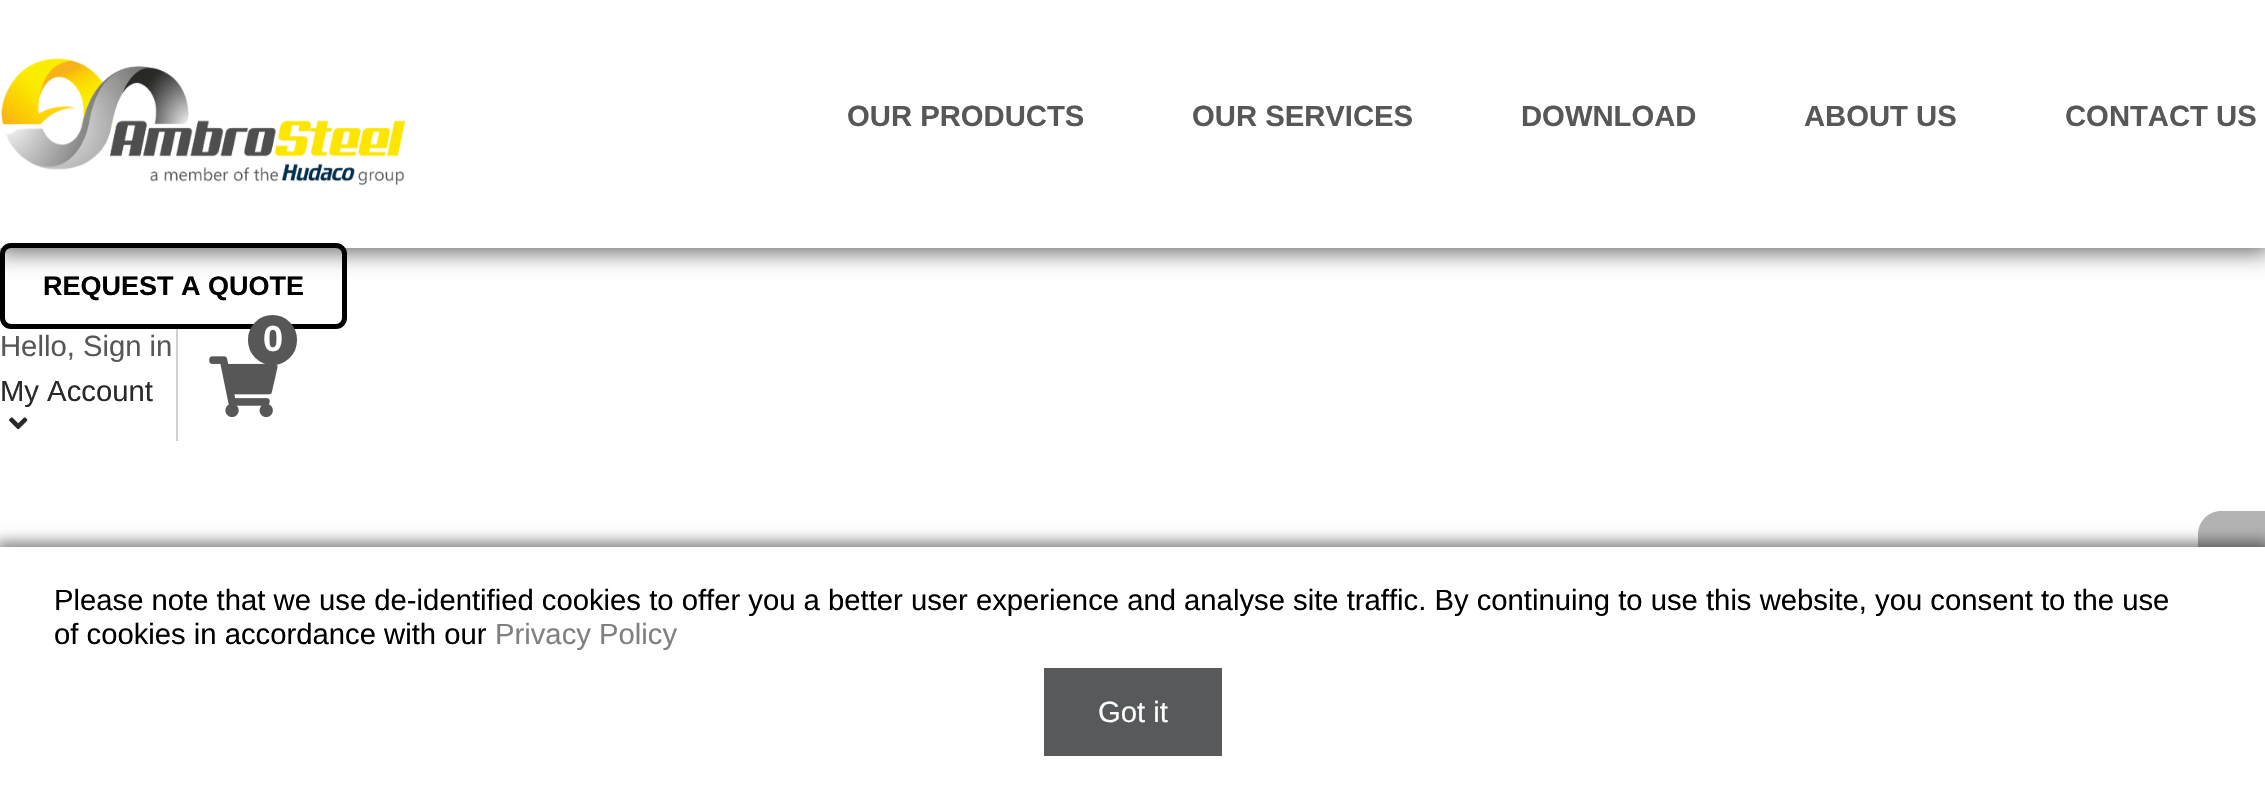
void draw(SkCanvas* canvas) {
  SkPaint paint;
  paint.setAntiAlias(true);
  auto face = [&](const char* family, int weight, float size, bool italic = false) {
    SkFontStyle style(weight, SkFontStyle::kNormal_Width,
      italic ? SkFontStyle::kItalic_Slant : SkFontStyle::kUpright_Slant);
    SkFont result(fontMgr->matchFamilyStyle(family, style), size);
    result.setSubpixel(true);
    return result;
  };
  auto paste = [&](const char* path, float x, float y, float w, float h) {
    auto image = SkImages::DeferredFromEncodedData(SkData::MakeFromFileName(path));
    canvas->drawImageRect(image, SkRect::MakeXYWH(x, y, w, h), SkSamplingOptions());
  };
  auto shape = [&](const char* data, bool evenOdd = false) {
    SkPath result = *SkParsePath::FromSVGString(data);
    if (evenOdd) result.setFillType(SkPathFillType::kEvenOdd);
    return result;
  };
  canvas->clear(0xffffffff);
  paint.setColor(0xff656565);
  paint.setMaskFilter(SkMaskFilter::MakeBlur(kNormal_SkBlurStyle, 11));
  canvas->drawRect(SkRect::MakeXYWH(-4, -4, 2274, 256), paint);
  paint.setMaskFilter(nullptr);
  paint.setColor(0xffffffff);
  canvas->drawRect(SkRect::MakeXYWH(0, 0, 2265, 248), paint);
  paste("img/1.png", 1, 58, 405, 128);
  paint.setStroke(true);
  paint.setStrokeWidth(5);
  paint.setColor(0xff000000);
  canvas->drawRoundRect(SkRect::MakeXYWH(2.5f, 245.5f, 342, 81), 8.5f, 8.5f, paint);
  paint.setStroke(false);
  paint.setColor(0xffd2d0d0);
  canvas->drawRect(SkRect::MakeXYWH(176, 329, 2, 112), paint);
  paste("img/2.png", 9, 417, 19, 13);
  paste("img/3.png", 209, 356, 69, 62);
  paint.setColor(0xff585757);
  canvas->drawRoundRect(SkRect::MakeXYWH(248, 315, 49, 50), 24.5f, 24.5f, paint);
  paint.setColor(0x99808080);
  canvas->drawPath(shape("M2221 511H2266V612H2221C2208.5 612 2198 601.5 2198 589V534C2198 521.5 2208.5 511 2221 511Z"), paint);
  paint.setColor(0x80000000);
  paint.setMaskFilter(SkMaskFilter::MakeBlur(kNormal_SkBlurStyle, 7));
  canvas->drawRect(SkRect::MakeXYWH(-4, 542, 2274, 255), paint);
  paint.setMaskFilter(nullptr);
  paint.setColor(0xffffffff);
  canvas->drawRect(SkRect::MakeXYWH(0, 547, 2265, 243), paint);
  paint.setColor(0xff58595b);
  canvas->drawRect(SkRect::MakeXYWH(1044, 668, 178, 88), paint);
  auto f0 = face("Liberation Sans", 700, 29.25f);
  paint.setColor(0xff585757);
  {
    const struct { const char* s; float x, y; } items[] = {
      {"OUR PRODUCTS", 847, 126},
      {"OUR SERVICES", 1192, 126},
      {"DOWNLOAD", 1521, 126},
      {"ABOUT US", 1804, 126},
      {"CONTACT US", 2065, 126},
    };
    for (auto [s, x, y] : items) {
      canvas->drawString(s, x, y, f0, paint);
    }
  }
  auto f1 = face("Liberation Sans", 700, 27);
  paint.setColor(0xff000000);
  canvas->drawString("REQUEST A QUOTE", 43, 295, f1, paint);
  auto f2 = face("Liberation Sans", 400, 29.25f);
  paint.setColor(0xff585757);
  canvas->drawString("Hello, Sign in", 0, 356, f2, paint);
  paint.setColor(0xff292928);
  canvas->drawString("My Account", 0, 401, f2, paint);
  auto f3 = face("Liberation Sans", 700, 36);
  paint.setColor(0xffffffff);
  canvas->drawString("0", 263, 351, f3, paint);
  paint.setColor(0xff000000);
  canvas->drawString("Please note that we use de-identified cookies to offer you a better user experience and analyse site traffic. By continuing to use this website, you consent to the use", 54, 610, f2, paint);
  canvas->drawString("of cookies in accordance with our", 54, 644, f2, paint);
  paint.setColor(0xff808080);
  canvas->drawString("Privacy Policy", 495, 644, f2, paint);
  paint.setColor(0xffffffff);
  canvas->drawString("Got it", 1098, 722, f2, paint);
}
